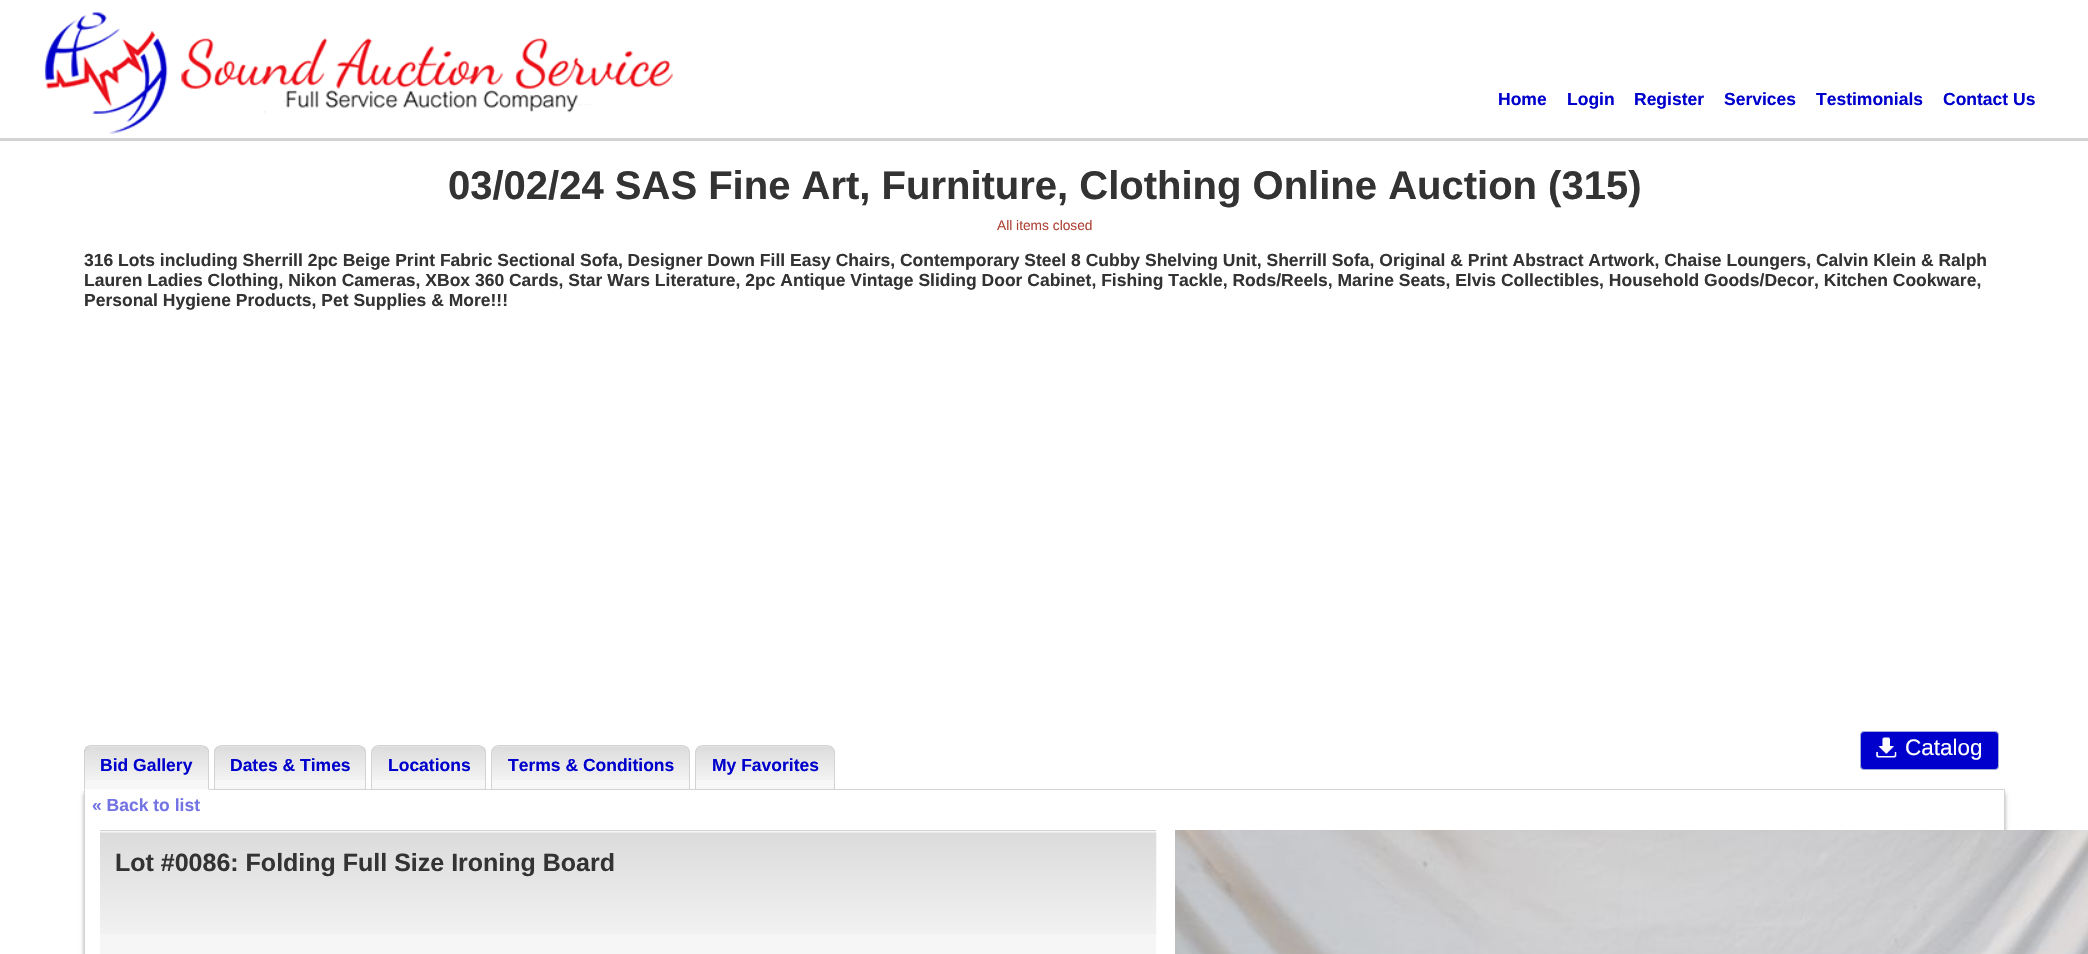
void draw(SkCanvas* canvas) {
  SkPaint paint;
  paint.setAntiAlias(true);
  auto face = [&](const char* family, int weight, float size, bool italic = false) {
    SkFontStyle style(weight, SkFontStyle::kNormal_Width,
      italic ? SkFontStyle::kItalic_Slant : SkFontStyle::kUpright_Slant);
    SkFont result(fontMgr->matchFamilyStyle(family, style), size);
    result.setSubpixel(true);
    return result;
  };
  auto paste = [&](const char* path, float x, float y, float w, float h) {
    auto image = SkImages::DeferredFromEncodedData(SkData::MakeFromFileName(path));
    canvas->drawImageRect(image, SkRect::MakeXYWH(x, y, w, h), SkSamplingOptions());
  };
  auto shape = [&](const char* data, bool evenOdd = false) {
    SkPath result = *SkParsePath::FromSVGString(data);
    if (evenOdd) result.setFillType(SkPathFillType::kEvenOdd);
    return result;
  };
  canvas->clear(0xffffffff);
  paint.setColor(0xffd3d3d3);
  canvas->drawRect(SkRect::MakeXYWH(0, 138, 2088, 3), paint);
  paste("img/1.png", 44, 12, 629, 122);
  paint.setColor(0xff0000cc);
  canvas->drawRoundRect(SkRect::MakeXYWH(1860.5f, 731.5f, 138, 38), 3.5f, 3.5f, paint);
  paint.setStroke(true);
  paint.setStrokeWidth(1);
  paint.setColor(0xff9faed9);
  canvas->drawRoundRect(SkRect::MakeXYWH(1860.5f, 731.5f, 138, 38), 3.5f, 3.5f, paint);
  paste("img/2.png", 1876, 737, 21, 21);
  paint.setStroke(false);
  paint.setColor(0xfff7f7f7);
  canvas->drawPath(shape("M222 745H358C362.5 745 366 748.5 366 753V790H214V753C214 748.5 217.5 745 222 745Z"), paint);
  paste("img/4.png", 214, 746, 152, 34);
  paint.setStroke(true);
  paint.setColor(0xffd3d3d3);
  canvas->drawPath(shape("M222 745.5H358C362 745.5 365.5 749 365.5 753V789.5H214.5V753C214.5 749 218 745.5 222 745.5Z"), paint);
  paint.setStroke(false);
  paint.setColor(0xfff7f7f7);
  canvas->drawPath(shape("M379 745H478C482.5 745 486 748.5 486 753V790H371V753C371 748.5 374.5 745 379 745Z"), paint);
  paste("img/5.png", 371, 746, 115, 34);
  paint.setStroke(true);
  paint.setColor(0xffd3d3d3);
  canvas->drawPath(shape("M379 745.5H478C482 745.5 485.5 749 485.5 753V789.5H371.5V753C371.5 749 375 745.5 379 745.5Z"), paint);
  paint.setStroke(false);
  paint.setColor(0xfff7f7f7);
  canvas->drawPath(shape("M499 745H682C686.5 745 690 748.5 690 753V790H491V753C491 748.5 494.5 745 499 745Z"), paint);
  paste("img/6.png", 491, 746, 199, 34);
  paint.setStroke(true);
  paint.setColor(0xffd3d3d3);
  canvas->drawPath(shape("M499 745.5H682C686 745.5 689.5 749 689.5 753V789.5H491.5V753C491.5 749 495 745.5 499 745.5Z"), paint);
  paint.setStroke(false);
  paint.setColor(0xfff7f7f7);
  canvas->drawPath(shape("M703 745H827C831.5 745 835 748.5 835 753V790H695V753C695 748.5 698.5 745 703 745Z"), paint);
  paste("img/7.png", 695, 746, 140, 34);
  paint.setStroke(true);
  paint.setColor(0xffd3d3d3);
  canvas->drawPath(shape("M703 745.5H827C831 745.5 834.5 749 834.5 753V789.5H695.5V753C695.5 749 699 745.5 703 745.5Z"), paint);
  canvas->save();
  canvas->clipPath(shape("M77 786H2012V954H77ZM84 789H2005V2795H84Z", true), true);
  paint.setStroke(false);
  paint.setColor(0xffaaaaaa);
  paint.setMaskFilter(SkMaskFilter::MakeBlur(kNormal_SkBlurStyle, 2));
  canvas->drawRect(SkRect::MakeXYWH(84, 793, 1921, 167), paint);
  paint.setMaskFilter(nullptr);
  canvas->restore();
  paint.setStroke(true);
  paint.setColor(0xffd3d3d3);
  canvas->drawRect(SkRect::MakeXYWH(84.5f, 789.5f, 1920, 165), paint);
  paint.setStroke(false);
  paint.setColor(0xfff7f7f7);
  canvas->drawPath(shape("M92 745H201C205.5 745 209 748.5 209 753V790H84V753C84 748.5 87.5 745 92 745Z"), paint);
  paste("img/3.png", 84, 746, 125, 34);
  paint.setColor(0xffd3d3d3);
  canvas->drawPath(shape("M91 745C89 745 87 746 86 747L87 748L90 746H202C203 746 205 747 206 748L207 747C205 746 203 745 201 745Z"), paint);
  canvas->drawPath(shape("M209 750V790L208 789V752C208 750 207 749 206 748L207 747Z"), paint);
  paint.setColor(0xfffbfbfb);
  canvas->drawPath(shape("M209 790L208 789H85L84 790Z"), paint);
  paint.setColor(0xffd3d3d3);
  canvas->drawPath(shape("M86 747C85 748 84 750 84 752V790L85 789V752C85 751 86 749 87 748Z"), paint);
  paint.setColor(0xfff6f6f6);
  canvas->drawRect(SkRect::MakeXYWH(100, 831, 1056, 123), paint);
  paste("img/8.png", 100, 832, 1057, 102);
  paint.setColor(0xffd3d3d3);
  canvas->drawRect(SkRect::MakeXYWH(100, 830, 1056, 1), paint);
  paste("img/9.png", 1175, 830, 913, 124);
  auto f0 = face("Liberation Sans", 700, 17.5f);
  paint.setColor(0xff0000cc);
  {
    const struct { const char* s; float x, y; } items[] = {
      {"Home", 1498, 105},
      {"Login", 1567, 105},
      {"Register", 1634, 105},
      {"Services", 1724, 105},
      {"Testimonials", 1816, 105},
      {"Contact Us", 1943, 105},
    };
    for (auto [s, x, y] : items) {
      canvas->drawString(s, x, y, f0, paint);
    }
  }
  auto f1 = face("Liberation Sans", 700, 40);
  paint.setColor(0xff333333);
  canvas->drawString("03/02/24 SAS Fine Art, Furniture, Clothing Online Auction (315)", 448, 199, f1, paint);
  auto f2 = face("Liberation Sans", 400, 13.75f);
  paint.setColor(0xffaf4539);
  canvas->drawString("All items closed", 997, 230, f2, paint);
  paint.setColor(0xff333333);
  {
    const struct { const char* s; float x, y; } items[] = {
      {"316 Lots including Sherrill 2pc Beige Print Fabric Sectional Sofa, Designer Down Fill Easy Chairs, Contemporary Steel 8 Cubby Shelving Unit, Sherrill Sofa, Original & Print Abstract Artwork, Chaise Loungers, Calvin Klein & Ralph", 84, 266},
      {"Lauren Ladies Clothing, Nikon Cameras, XBox 360 Cards, Star Wars Literature, 2pc Antique Vintage Sliding Door Cabinet, Fishing Tackle, Rods/Reels, Marine Seats, Elvis Collectibles, Household Goods/Decor, Kitchen Cookware,", 84, 286},
      {"Personal Hygiene Products, Pet Supplies & More!!!", 84, 306},
    };
    for (auto [s, x, y] : items) {
      canvas->drawString(s, x, y, f0, paint);
    }
  }
  auto f3 = face("Liberation Sans", 400, 22.5f);
  paint.setColor(0xffffffff);
  canvas->drawString("Catalog", 1905, 755, f3, paint);
  paint.setColor(0xff0000cc);
  {
    const struct { const char* s; float x, y; } items[] = {
      {"Bid Gallery", 100, 771},
      {"Dates & Times", 230, 771},
      {"Locations", 388, 771},
      {"Terms & Conditions", 508, 771},
      {"My Favorites", 712, 771},
    };
    for (auto [s, x, y] : items) {
      canvas->drawString(s, x, y, f0, paint);
    }
  }
  paint.setColor(0xff7373e3);
  canvas->drawString("« Back to list", 92, 811, f0, paint);
  auto f4 = face("Liberation Sans", 700, 25);
  paint.setColor(0xff333333);
  canvas->drawString("Lot #0086: Folding Full Size Ironing Board", 115, 871, f4, paint);
}
